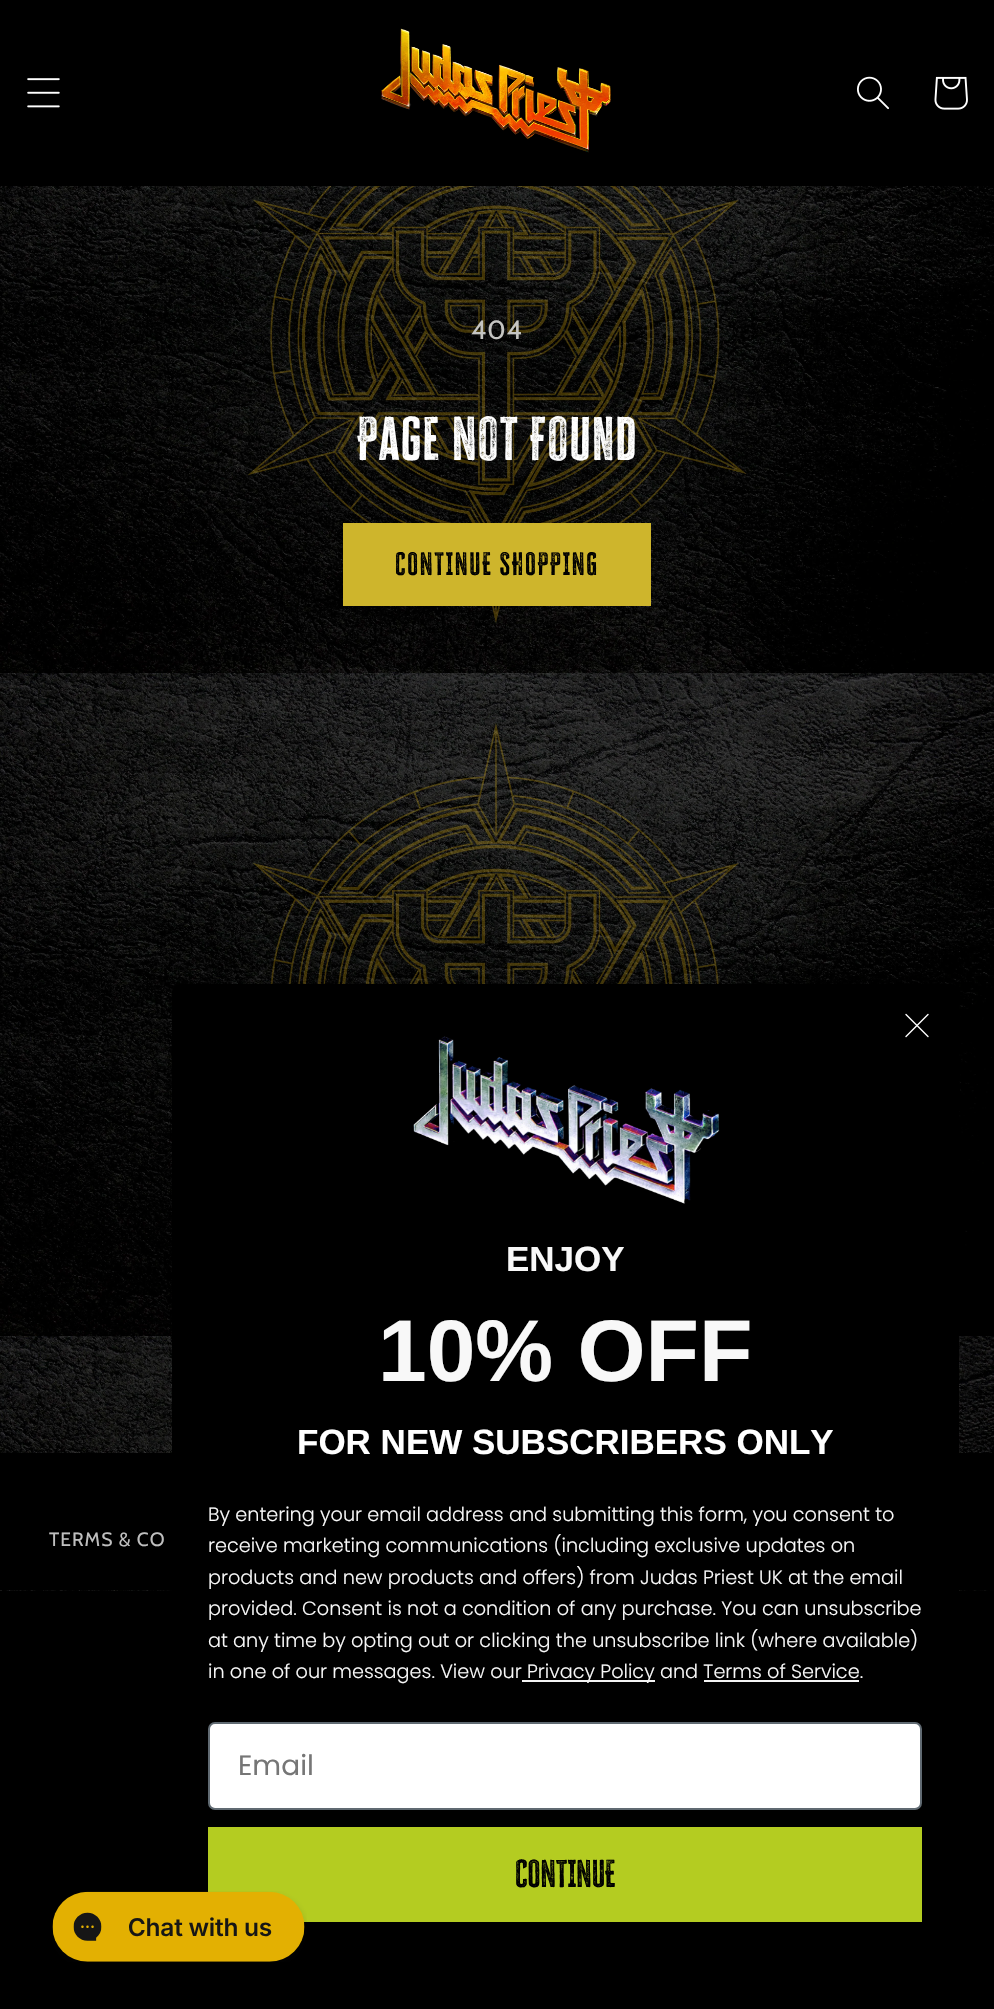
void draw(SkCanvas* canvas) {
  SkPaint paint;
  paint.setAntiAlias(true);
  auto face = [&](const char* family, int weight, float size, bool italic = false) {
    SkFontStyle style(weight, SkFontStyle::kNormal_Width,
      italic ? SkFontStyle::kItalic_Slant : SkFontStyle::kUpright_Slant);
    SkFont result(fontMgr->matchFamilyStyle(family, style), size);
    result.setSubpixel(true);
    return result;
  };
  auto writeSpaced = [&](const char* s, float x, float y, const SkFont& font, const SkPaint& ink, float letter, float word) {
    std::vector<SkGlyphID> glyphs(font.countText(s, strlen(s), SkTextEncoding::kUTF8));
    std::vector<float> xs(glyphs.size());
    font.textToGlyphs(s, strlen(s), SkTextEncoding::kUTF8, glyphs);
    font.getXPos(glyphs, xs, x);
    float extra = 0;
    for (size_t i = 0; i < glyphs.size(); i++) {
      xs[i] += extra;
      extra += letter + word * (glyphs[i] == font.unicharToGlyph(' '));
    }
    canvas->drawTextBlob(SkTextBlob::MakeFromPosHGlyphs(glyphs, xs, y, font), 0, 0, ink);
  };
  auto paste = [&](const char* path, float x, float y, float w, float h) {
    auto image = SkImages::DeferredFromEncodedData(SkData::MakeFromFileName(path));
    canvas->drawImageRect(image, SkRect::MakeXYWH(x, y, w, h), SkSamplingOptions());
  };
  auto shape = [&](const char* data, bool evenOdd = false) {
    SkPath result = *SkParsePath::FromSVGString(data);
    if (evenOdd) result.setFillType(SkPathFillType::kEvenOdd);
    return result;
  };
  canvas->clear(0xff000000);
  paste("img/1.png", 27, 78, 33, 30);
  paste("img/2.png", 381, 28, 230, 125);
  paste("img/3.png", 857, 76, 32, 34);
  paste("img/4.png", 934, 76, 34, 34);
  paste("img/5.png", 0, 186, 994, 1267);
  paint.setColor(0xffceb52c);
  canvas->drawRect(SkRect::MakeXYWH(343, 523, 308, 83), paint);
  paste("img/7.png", 0, 1590, 994, 1);
  paint.setColor(0x26000000);
  paint.setMaskFilter(SkMaskFilter::MakeBlur(kNormal_SkBlurStyle, 26));
  canvas->drawRoundRect(SkRect::MakeXYWH(172, 984, 787, 990), 7, 7, paint);
  paint.setMaskFilter(nullptr);
  paint.setColor(0xff000000);
  canvas->drawRoundRect(SkRect::MakeXYWH(172, 984, 787, 990), 7, 7, paint);
  paint.setStroke(true);
  paint.setStrokeWidth(1.4f);
  paint.setStrokeCap(SkPaint::kRound_Cap);
  paint.setStrokeJoin(SkPaint::kRound_Join);
  paint.setColor(0xffffffff);
  canvas->drawPath(shape("M906 1014.5L928 1036.5M906 1036.5L928 1014.5Z"), paint);
  paste("img/6.png", 413, 1036, 307, 168);
  paint.setStroke(false);
  paint.setColor(0xfff5f5f5);
  canvas->drawRect(SkRect::MakeXYWH(522, 1680, 133, 2), paint);
  paint.setColor(0xffffffff);
  canvas->drawRoundRect(SkRect::MakeXYWH(209, 1723, 712, 86), 6, 6, paint);
  paint.setStroke(true);
  paint.setStrokeWidth(2);
  paint.setStrokeCap(SkPaint::kButt_Cap);
  paint.setStrokeJoin(SkPaint::kMiter_Join);
  paint.setColor(0xff606a72);
  canvas->drawRoundRect(SkRect::MakeXYWH(209, 1723, 712, 86), 6, 6, paint);
  paint.setStroke(false);
  paint.setColor(0xffb4cc21);
  canvas->drawRect(SkRect::MakeXYWH(208, 1827, 714, 95), paint);
  paste("img/8.png", 52, 1891, 255, 71);
  auto f0 = face("Cabin", 400, 26.25f);
  paint.setColor(0xffc5c5c2);
  writeSpaced("404", 471, 339, f0, paint, 1, 0);
  auto f1 = face("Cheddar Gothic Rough", 400, 50.25f);
  paint.setColor(0xffffffff);
  writeSpaced("Page Not Found", 357, 460, f1, paint, 1.25f, 0);
  auto f2 = face("Cheddar Gothic Rough", 400, 26.25f);
  paint.setColor(0xff000000);
  writeSpaced("CONTINUE SHOPPING", 395, 575, f2, paint, 1.75f, 0);
  auto f3 = face("Cabin", 400, 19.25f);
  paint.setColor(0xffbfbfbf);
  writeSpaced("TERMS & CO", 49, 1546, f3, paint, 1, 0);
  auto f4 = face("Liberation Sans", 700, 35);
  paint.setColor(0xfff8f8f8);
  canvas->drawString("ENJOY", 506, 1271, f4, paint);
  auto f5 = face("Liberation Sans", 700, 87.5f);
  canvas->drawString("10% OFF", 378, 1381, f5, paint);
  paint.setColor(0xffffffff);
  canvas->drawString("FOR NEW SUBSCRIBERS ONLY", 297, 1454, f4, paint);
  auto f6 = face("Poppins", 300, 19.25f);
  paint.setColor(0xfff8f8f8);
  {
    const struct { const char* s; float x, y; } items[] = {
      {"By entering your email address and submitting this form, you consent to", 208, 1521},
      {"receive marketing communications (including exclusive updates on", 208, 1552},
      {"products and new products and offers) from Judas Priest UK at the email", 208, 1584},
      {"provided. Consent is not a condition of any purchase. You can unsubscribe", 208, 1615},
      {"at any time by opting out or clicking the unsubscribe link (where available)", 208, 1647},
      {"in one of our messages. View our", 208, 1678},
      {"Privacy Policy and Terms of Service.", 527, 1678},
    };
    for (auto [s, x, y] : items) {
      canvas->drawString(s, x, y, f6, paint);
    }
  }
  paint.setColor(0xfff5f5f5);
  canvas->drawRect(SkRect::MakeXYWH(704, 1680, 155, 2), paint);
  auto f7 = face("Poppins", 400, 28);
  paint.setColor(0xff767676);
  canvas->drawString("Email", 238, 1775, f7, paint);
  auto f8 = face("Cheddar Gothic Rough", 400, 31.5f);
  paint.setColor(0xff000000);
  canvas->drawString("CONTINUE", 515, 1887, f8, paint);
}
